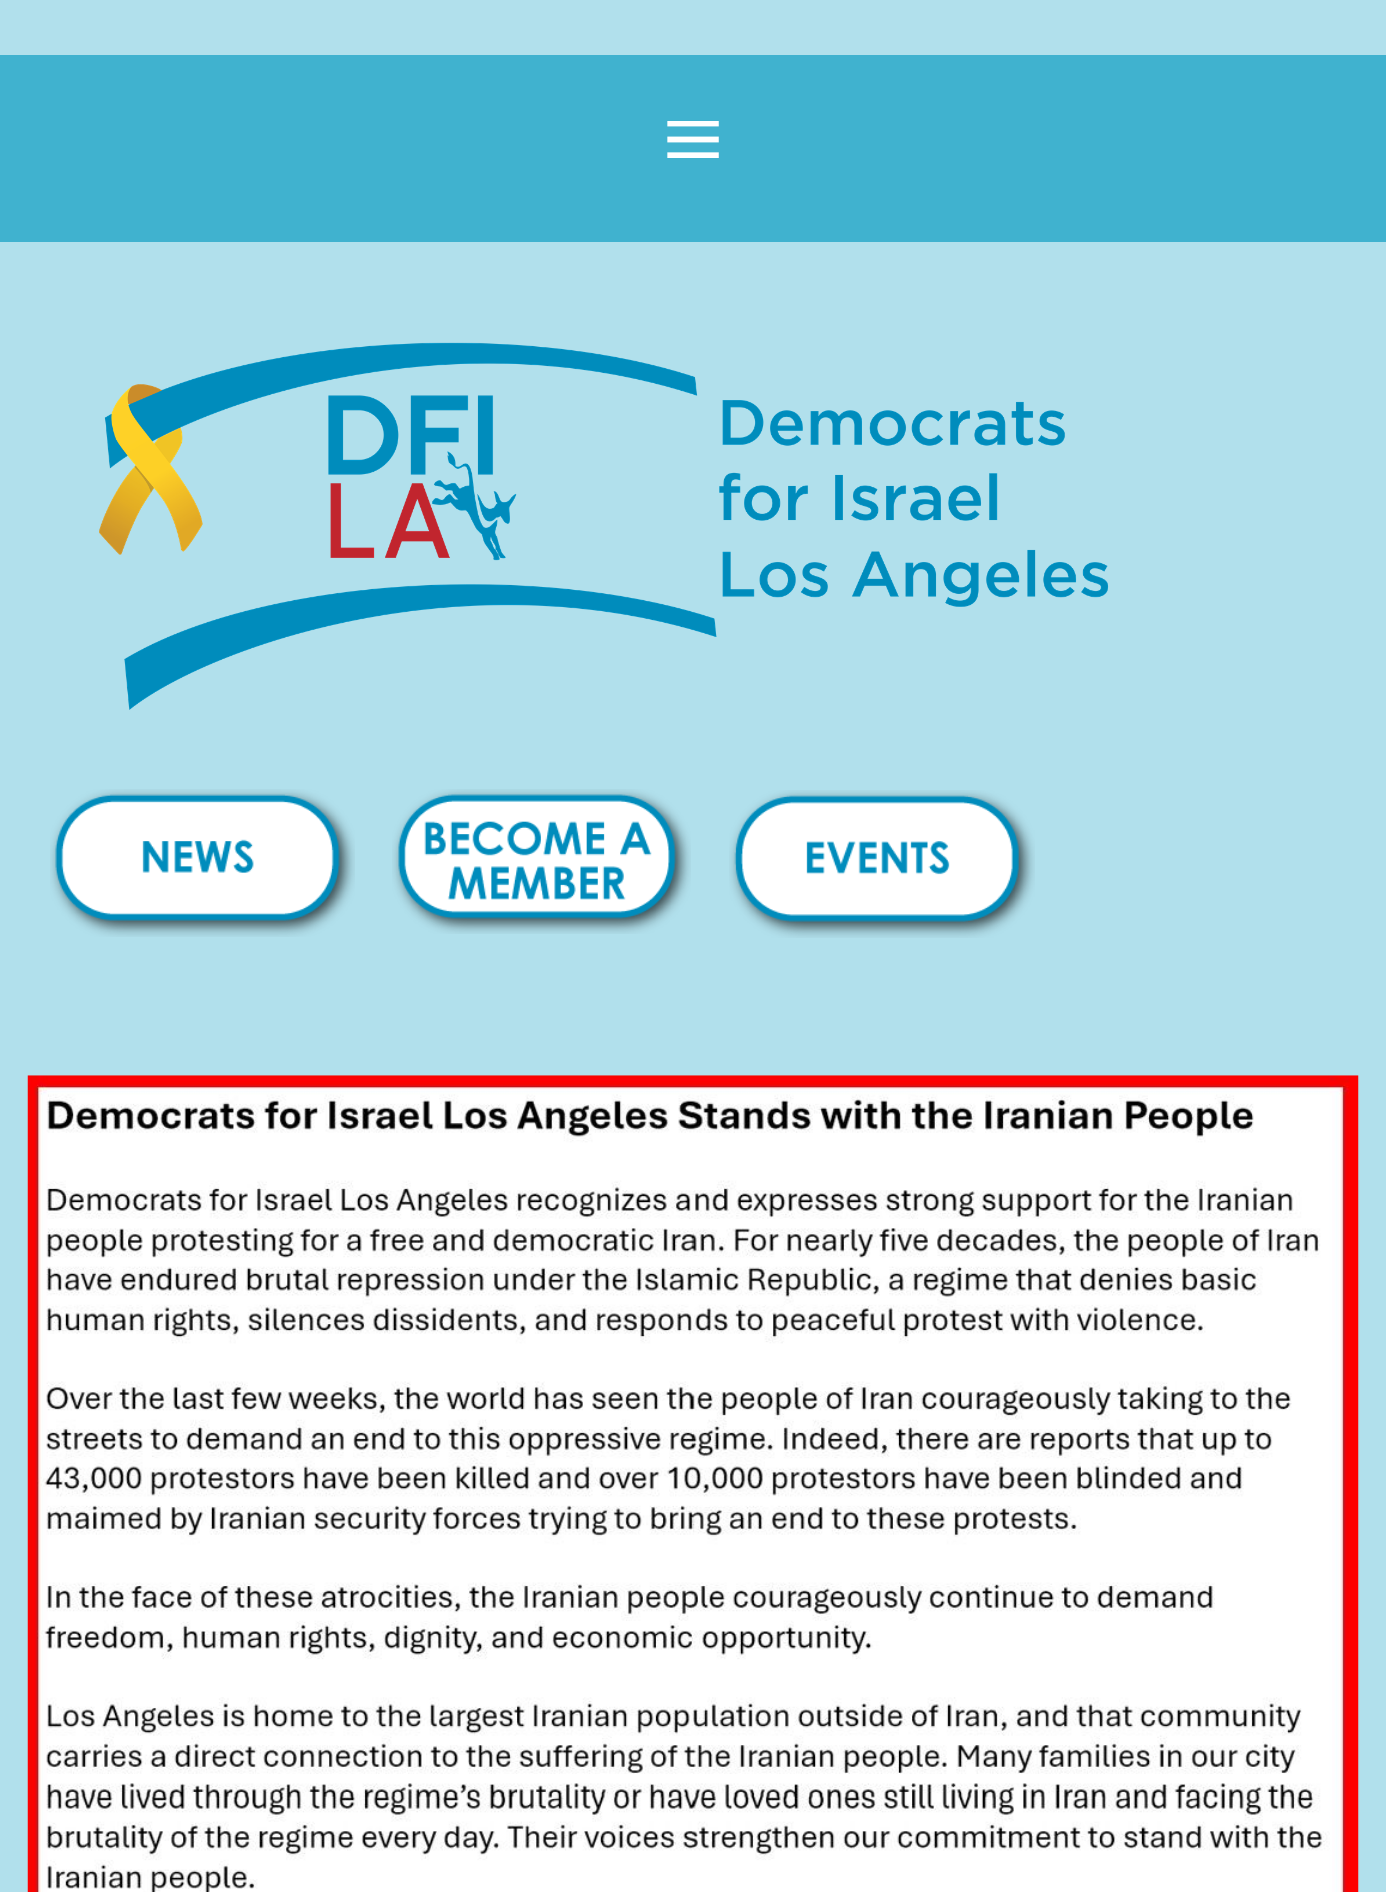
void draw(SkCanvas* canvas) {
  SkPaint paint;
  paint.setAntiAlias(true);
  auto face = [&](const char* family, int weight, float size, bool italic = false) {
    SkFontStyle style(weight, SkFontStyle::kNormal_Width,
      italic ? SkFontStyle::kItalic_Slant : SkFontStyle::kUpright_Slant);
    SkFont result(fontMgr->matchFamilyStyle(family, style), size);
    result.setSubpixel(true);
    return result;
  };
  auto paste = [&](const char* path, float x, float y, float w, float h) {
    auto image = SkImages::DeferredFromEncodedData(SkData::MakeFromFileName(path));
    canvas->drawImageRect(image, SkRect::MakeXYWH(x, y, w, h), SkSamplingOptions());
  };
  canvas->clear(0xffb1e0ec);
  paint.setColor(0xff40b2cf);
  canvas->drawRect(SkRect::MakeXYWH(0, 55, 1386, 187), paint);
  paste("img/1.png", 99, 342, 1010, 368);
  paste("img/2.png", 50, 789, 305, 148);
  paste("img/3.png", 392, 789, 299, 145);
  paste("img/4.png", 729, 790, 306, 148);
  paste("img/5.png", 27, 1075, 1332, 817);
  auto f0 = face("Liberation Serif", 400, 110);
  paint.setColor(0xffffffff);
  canvas->drawString("≡", 662, 176, f0, paint);
}
